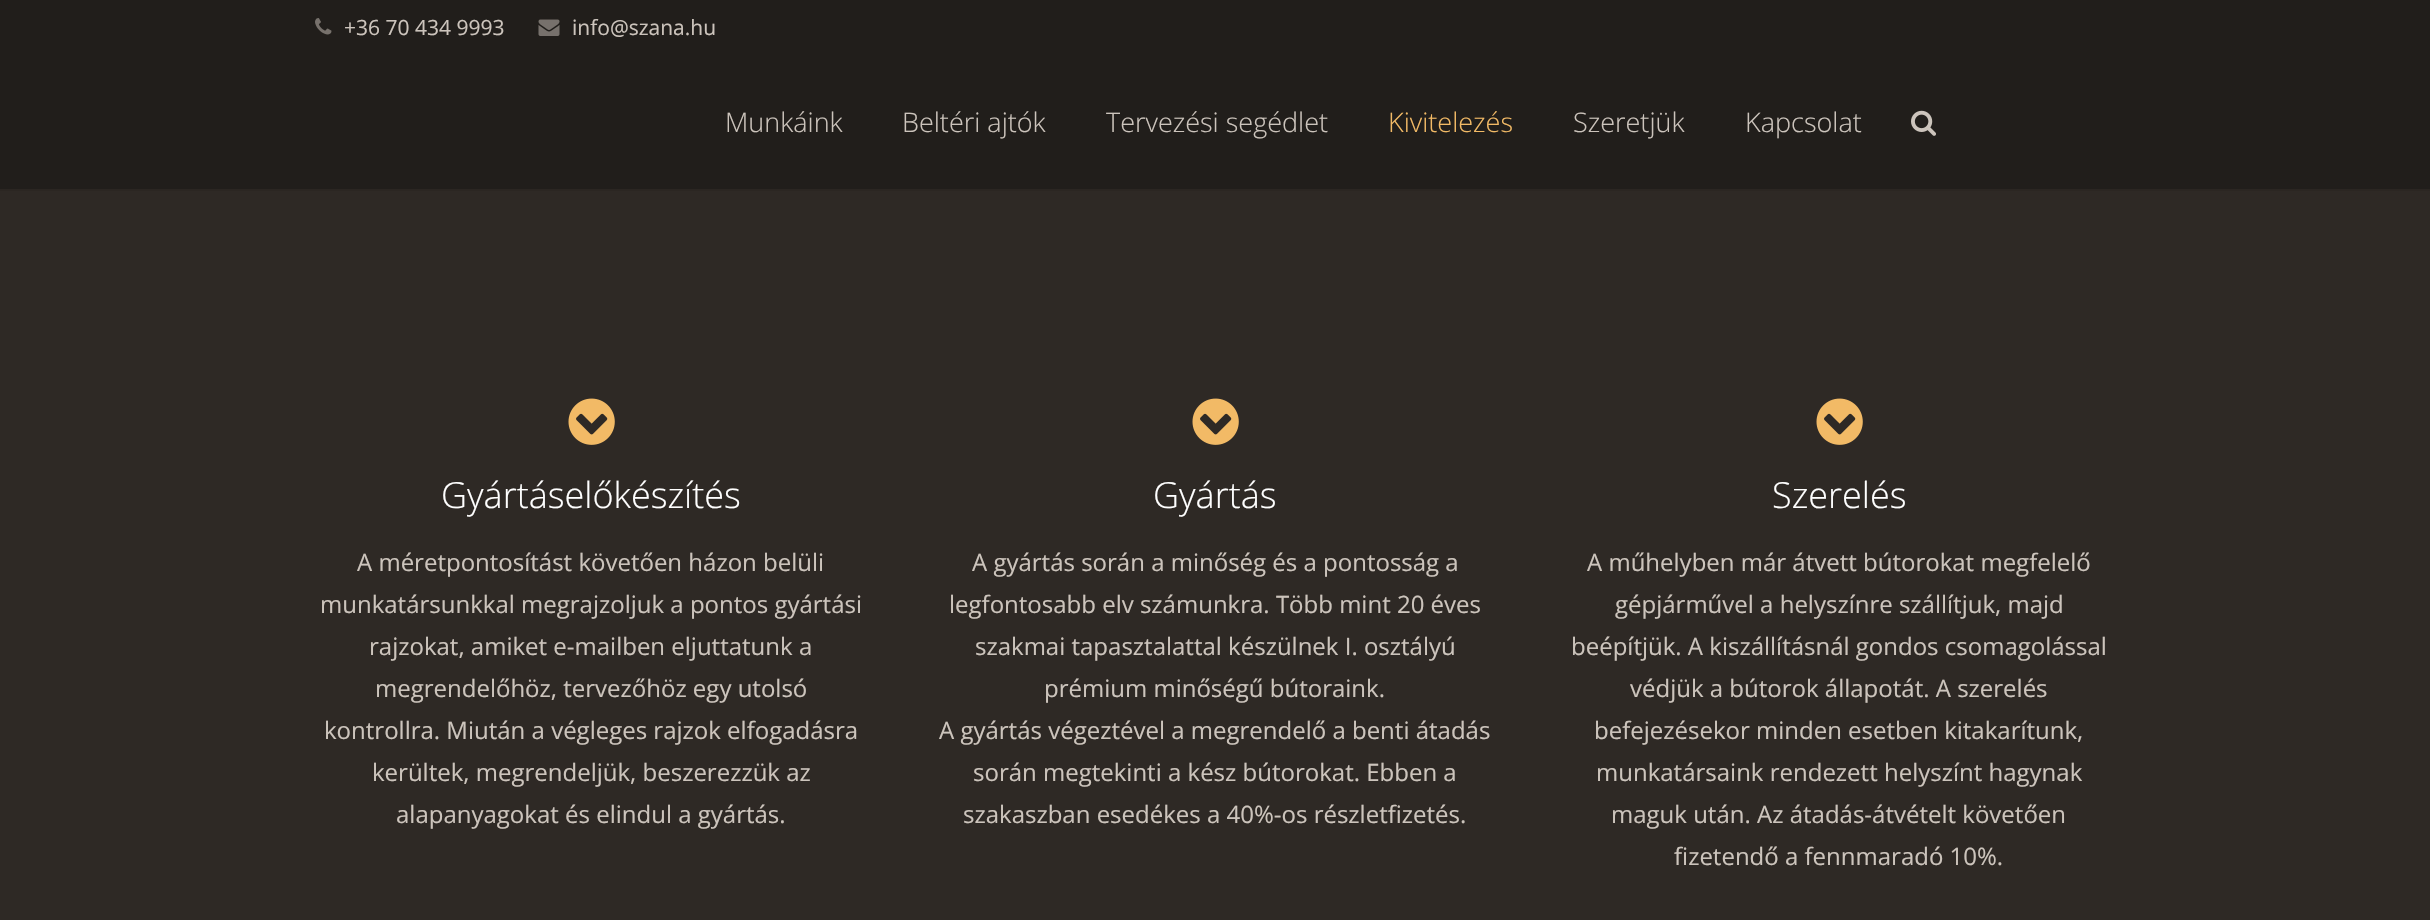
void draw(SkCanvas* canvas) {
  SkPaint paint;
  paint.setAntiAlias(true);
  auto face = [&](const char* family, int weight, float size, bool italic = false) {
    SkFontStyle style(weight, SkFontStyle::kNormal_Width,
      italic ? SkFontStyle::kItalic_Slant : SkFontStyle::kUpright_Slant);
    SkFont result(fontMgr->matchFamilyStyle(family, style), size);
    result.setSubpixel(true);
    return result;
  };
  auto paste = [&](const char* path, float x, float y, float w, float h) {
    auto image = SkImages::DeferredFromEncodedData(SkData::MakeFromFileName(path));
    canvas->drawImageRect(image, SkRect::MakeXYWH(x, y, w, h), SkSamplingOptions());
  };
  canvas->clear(0xff2e2925);
  paint.setColor(0xff211e1b);
  canvas->drawRect(SkRect::MakeXYWH(0, 0, 2430, 189), paint);
  paste("img/1.png", 315, 18, 17, 17);
  paste("img/2.png", 538, 19, 22, 17);
  paint.setColor(0x14000000);
  canvas->drawRect(SkRect::MakeXYWH(0, 189, 2430, 2), paint);
  paste("img/3.png", 1911, 110, 25, 26);
  paste("img/4.png", 568, 398, 47, 47);
  paste("img/4.png", 1192, 398, 47, 47);
  paste("img/4.png", 1816, 398, 47, 47);
  auto f0 = face("Open Sans", 400, 21);
  paint.setColor(0xffccc4bc);
  canvas->drawString("+36 70 434 9993", 344, 35, f0, paint);
  canvas->drawString("info@szana.hu", 572, 35, f0, paint);
  auto f1 = face("Open Sans", 300, 27);
  {
    const struct { const char* s; float x, y; } items[] = {
      {"Munkáink", 725, 132},
      {"Beltéri ajtók", 902, 132},
      {"Tervezési segédlet", 1106, 132},
    };
    for (auto [s, x, y] : items) {
      canvas->drawString(s, x, y, f1, paint);
    }
  }
  paint.setColor(0xfff2ba66);
  canvas->drawString("Kivitelezés", 1388, 132, f1, paint);
  paint.setColor(0xffccc4bc);
  canvas->drawString("Szeretjük", 1573, 132, f1, paint);
  canvas->drawString("Kapcsolat", 1745, 132, f1, paint);
  auto f2 = face("Open Sans", 300, 36);
  paint.setColor(0xffffffff);
  canvas->drawString("Gyártáselőkészítés", 441, 508, f2, paint);
  auto f3 = face("Open Sans", 400, 24);
  paint.setColor(0xffccc4bc);
  {
    const struct { const char* s; float x, y; } items[] = {
      {"A méretpontosítást követően házon belüli", 357, 571},
      {"munkatársunkkal megrajzoljuk a pontos gyártási", 320, 613},
      {"rajzokat, amiket e-mailben eljuttatunk a", 369, 655},
      {"megrendelőhöz, tervezőhöz egy utolsó", 375, 697},
      {"kontrollra. Miután a végleges rajzok elfogadásra", 324, 739},
      {"kerültek, megrendeljük, beszerezzük az", 372, 781},
      {"alapanyagokat és elindul a gyártás.", 396, 823},
    };
    for (auto [s, x, y] : items) {
      canvas->drawString(s, x, y, f3, paint);
    }
  }
  paint.setColor(0xffffffff);
  canvas->drawString("Gyártás", 1153, 508, f2, paint);
  paint.setColor(0xffccc4bc);
  {
    const struct { const char* s; float x, y; } items[] = {
      {"A gyártás során a minőség és a pontosság a", 972, 571},
      {"legfontosabb elv számunkra. Több mint 20 éves", 949, 613},
      {"szakmai tapasztalattal készülnek I. osztályú", 975, 655},
      {"prémium minőségű bútoraink.", 1044, 697},
      {"A gyártás végeztével a megrendelő a benti átadás", 939, 739},
      {"során megtekinti a kész bútorokat. Ebben a", 973, 781},
      {"szakaszban esedékes a 40%-os részletfizetés.", 963, 823},
    };
    for (auto [s, x, y] : items) {
      canvas->drawString(s, x, y, f3, paint);
    }
  }
  paint.setColor(0xffffffff);
  canvas->drawString("Szerelés", 1772, 508, f2, paint);
  paint.setColor(0xffccc4bc);
  {
    const struct { const char* s; float x, y; } items[] = {
      {"A műhelyben már átvett bútorokat megfelelő", 1587, 571},
      {"gépjárművel a helyszínre szállítjuk, majd", 1615, 613},
      {"beépítjük. A kiszállításnál gondos csomagolással", 1571, 655},
      {"védjük a bútorok állapotát. A szerelés", 1630, 697},
      {"befejezésekor minden esetben kitakarítunk,", 1594, 739},
      {"munkatársaink rendezett helyszínt hagynak", 1596, 781},
      {"maguk után. Az átadás-átvételt követően", 1611, 823},
      {"fizetendő a fennmaradó 10%.", 1674, 865},
    };
    for (auto [s, x, y] : items) {
      canvas->drawString(s, x, y, f3, paint);
    }
  }
}
